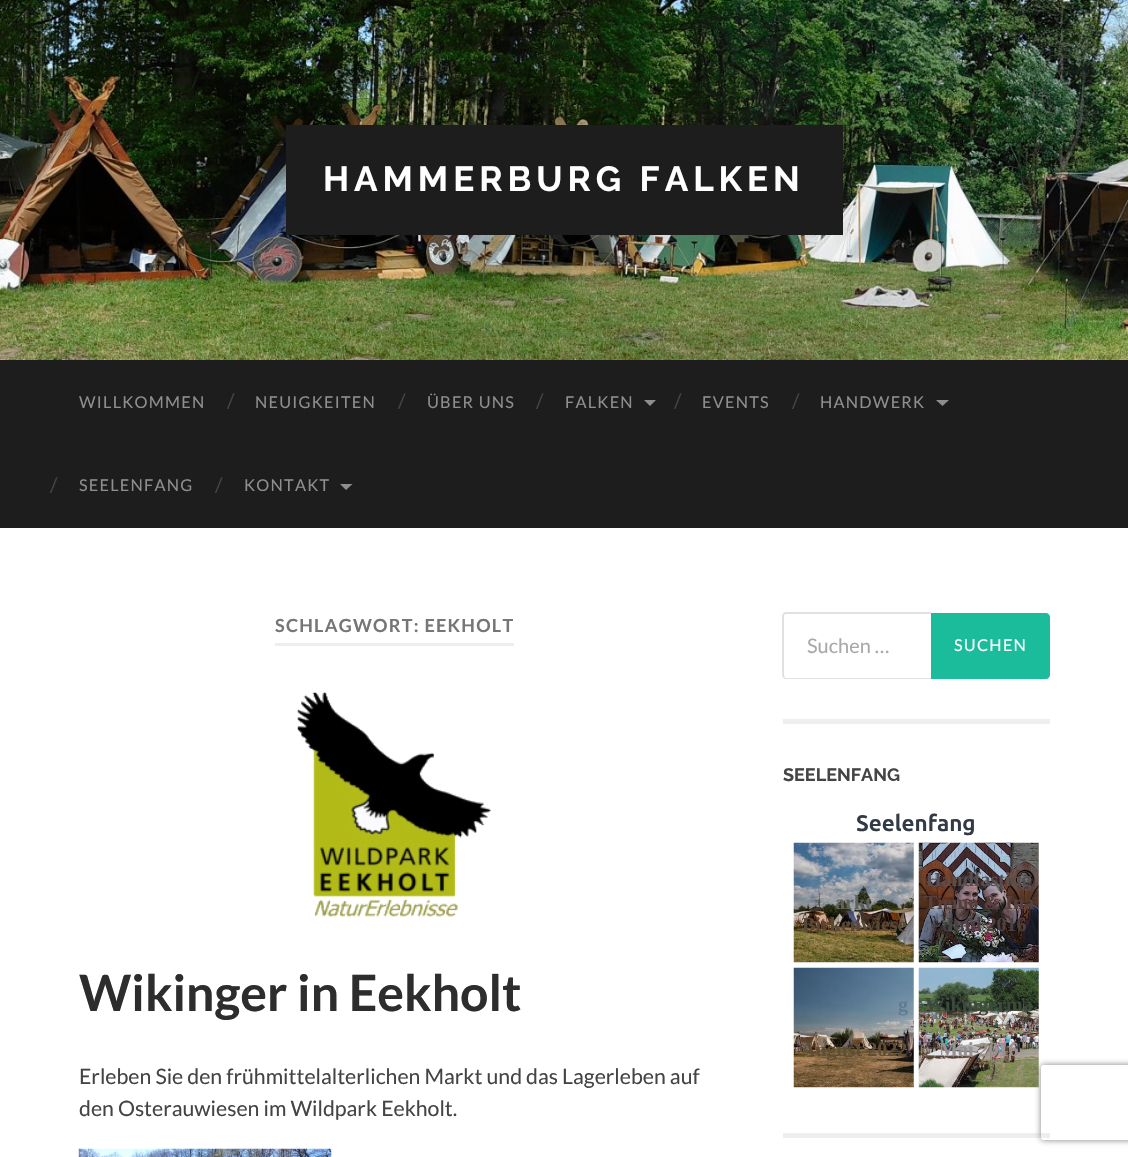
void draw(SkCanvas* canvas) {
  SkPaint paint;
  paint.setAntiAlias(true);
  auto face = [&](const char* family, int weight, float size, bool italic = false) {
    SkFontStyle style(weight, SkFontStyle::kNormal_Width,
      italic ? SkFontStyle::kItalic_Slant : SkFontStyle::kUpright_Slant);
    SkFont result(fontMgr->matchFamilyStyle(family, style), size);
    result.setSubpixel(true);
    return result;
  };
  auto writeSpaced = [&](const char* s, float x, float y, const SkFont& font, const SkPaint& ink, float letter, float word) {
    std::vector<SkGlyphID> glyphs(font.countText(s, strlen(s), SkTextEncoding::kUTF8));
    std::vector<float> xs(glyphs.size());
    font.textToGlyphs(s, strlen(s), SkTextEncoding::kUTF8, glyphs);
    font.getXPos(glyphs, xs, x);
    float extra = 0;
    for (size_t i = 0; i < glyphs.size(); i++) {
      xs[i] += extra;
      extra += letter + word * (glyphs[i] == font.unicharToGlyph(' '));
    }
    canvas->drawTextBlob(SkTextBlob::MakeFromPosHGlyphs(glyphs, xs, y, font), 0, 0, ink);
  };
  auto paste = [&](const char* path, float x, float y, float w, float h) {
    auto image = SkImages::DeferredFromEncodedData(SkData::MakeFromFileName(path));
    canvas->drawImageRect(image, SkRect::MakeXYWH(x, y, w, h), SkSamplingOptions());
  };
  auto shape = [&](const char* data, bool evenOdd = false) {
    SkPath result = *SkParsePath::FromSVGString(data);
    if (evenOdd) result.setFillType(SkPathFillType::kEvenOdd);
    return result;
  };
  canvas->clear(0xffffffff);
  paste("img/1.png", 0, 0, 1128, 360);
  paint.setColor(0xff1d1d1d);
  canvas->drawRect(SkRect::MakeXYWH(286, 125, 557, 110), paint);
  canvas->drawRect(SkRect::MakeXYWH(0, 360, 1128, 168), paint);
  paint.setColor(0xff8e8e8e);
  canvas->drawPath(shape("M644 400H656L650 406Z"), paint);
  canvas->drawPath(shape("M936 400H949L942.5 406Z"), paint);
  canvas->drawPath(shape("M340 484H352.5L346 490Z"), paint);
  paint.setColor(0xffeeeeee);
  canvas->drawRect(SkRect::MakeXYWH(275, 643, 239, 3), paint);
  paste("img/2.png", 297, 692, 195, 225);
  paste("img/3.png", 78, 1148, 254, 9);
  canvas->drawRect(SkRect::MakeXYWH(783, 719, 267, 5), paint);
  paint.setColor(0xffe1e1e3);
  canvas->drawPath(shape("M786 612H931V679H786C784 679 782 677 782 675V616C782 614 784 612 786 612ZM786 614H931V678H786C785 678 784 676 784 675V616C784 615 785 614 786 614Z", true), paint);
  paint.setColor(0xff1abc9c);
  canvas->drawPath(shape("M931 613H1046C1048 613 1050 615 1050 617V675C1050 677 1048 679 1046 679H931Z"), paint);
  paint.setColor(0xffeeeeee);
  canvas->drawRect(SkRect::MakeXYWH(783, 1133, 267, 5), paint);
  paste("img/4.png", 793, 842, 121, 121);
  paste("img/5.png", 918, 842, 121, 121);
  paste("img/6.png", 793, 967, 121, 121);
  paste("img/7.png", 918, 967, 121, 121);
  canvas->save();
  canvas->clipPath(shape("M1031 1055H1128V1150H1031ZM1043.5 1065H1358.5C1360 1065 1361 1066 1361 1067.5V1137.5C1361 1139 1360 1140 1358.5 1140H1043.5C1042 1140 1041 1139 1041 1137.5V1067.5C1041 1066 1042 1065 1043.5 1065Z", true), true);
  paint.setColor(0xff808080);
  paint.setMaskFilter(SkMaskFilter::MakeBlur(kNormal_SkBlurStyle, 3));
  canvas->drawRoundRect(SkRect::MakeXYWH(1041, 1065, 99, 75), 2.5f, 2.5f, paint);
  paint.setMaskFilter(nullptr);
  canvas->restore();
  auto f0 = face("Raleway", 100, 35);
  paint.setColor(0xffffffff);
  writeSpaced("HAMMERBURG FALKEN", 323, 191, f0, paint, 5, 0);
  auto f1 = face("Lato", 400, 16.25f);
  paint.setColor(0xff8e8e8e);
  writeSpaced("WILLKOMMEN", 79, 408, f1, paint, 1.25f, 0);
  auto f2 = face("Lato", 400, 20);
  paint.setColor(0xff444444);
  canvas->drawString("/", 227, 408, f2, paint);
  paint.setColor(0xff8e8e8e);
  writeSpaced("NEUIGKEITEN", 255, 408, f1, paint, 1.25f, 0);
  paint.setColor(0xff444444);
  canvas->drawString("/", 398, 408, f2, paint);
  paint.setColor(0xff8e8e8e);
  writeSpaced("ÜBER UNS", 427, 408, f1, paint, 1.25f, 0);
  paint.setColor(0xff444444);
  canvas->drawString("/", 536, 408, f2, paint);
  paint.setColor(0xff8e8e8e);
  writeSpaced("FALKEN", 565, 408, f1, paint, 1.25f, 0);
  paint.setColor(0xff444444);
  canvas->drawString("/", 674, 408, f2, paint);
  paint.setColor(0xff8e8e8e);
  writeSpaced("EVENTS", 702, 408, f1, paint, 1.25f, 0);
  paint.setColor(0xff444444);
  canvas->drawString("/", 792, 408, f2, paint);
  paint.setColor(0xff8e8e8e);
  writeSpaced("HANDWERK", 820, 408, f1, paint, 1.25f, 0);
  paint.setColor(0xff444444);
  canvas->drawString("/", 50, 492, f2, paint);
  paint.setColor(0xff8e8e8e);
  writeSpaced("SEELENFANG", 79, 491, f1, paint, 1.25f, 0);
  paint.setColor(0xff444444);
  canvas->drawString("/", 215, 492, f2, paint);
  paint.setColor(0xff8e8e8e);
  writeSpaced("KONTAKT", 244, 491, f1, paint, 1.25f, 0);
  auto f3 = face("Lato", 700, 18);
  paint.setColor(0xff767676);
  writeSpaced("SCHLAGWORT: EEKHOLT", 275, 632, f3, paint, 1.25f, 0);
  auto f4 = face("Lato", 700, 50);
  paint.setColor(0xff2d2d2d);
  canvas->drawString("Wikinger in Eekholt", 79, 1011, f4, paint);
  auto f5 = face("Lato", 400, 21.25f);
  paint.setColor(0xff444444);
  canvas->drawString("Erleben Sie den frühmittelalterlichen Markt und das Lagerleben auf", 79, 1084, f5, paint);
  canvas->drawString("den Osterauwiesen im Wildpark Eekholt.", 79, 1116, f5, paint);
  paint.setColor(0xffa9a9a9);
  canvas->drawString("Suchen …", 807, 653, f2, paint);
  paint.setColor(0xffffffff);
  writeSpaced("SUCHEN", 954, 651, f1, paint, 1.25f, 0);
  auto f6 = face("Raleway", 100, 18);
  paint.setColor(0xff444444);
  canvas->drawString("SEELENFANG", 783, 781, f6, paint);
  auto f7 = face("Ubuntu", 700, 22.5f);
  paint.setColor(0xff323a45);
  canvas->drawString("Seelenfang", 856, 831, f7, paint);
  auto f8 = face("Liberation Serif", 700, 20);
  paint.setColor(0xff5f635b);
  canvas->drawString("arkt", 835, 909, f8, paint);
  paint.setColor(0xff594835);
  canvas->drawString("Birkenwiese", 802, 931, f8, paint);
  paint.setColor(0xff594d4d);
  canvas->drawString("Handfasting", 926, 886, f8, paint);
  paint.setColor(0xff56403e);
  canvas->drawString("Tiemo & Ina", 924, 909, f8, paint);
  paint.setColor(0xff4b4142);
  canvas->drawString("- Juni 2016", 932, 931, f8, paint);
  paint.setColor(0xff5f7c92);
  canvas->drawString("g", 898, 1011, f8, paint);
  paint.setColor(0xff5f4d35);
  canvas->drawString("August 2022", 801, 1056, f8, paint);
  paint.setColor(0xff3d493a);
  canvas->drawString("Wikingerma", 925, 1011, f8, paint);
  paint.setColor(0xff979191);
  canvas->drawString("Mai 2016", 939, 1056, f8, paint);
}
